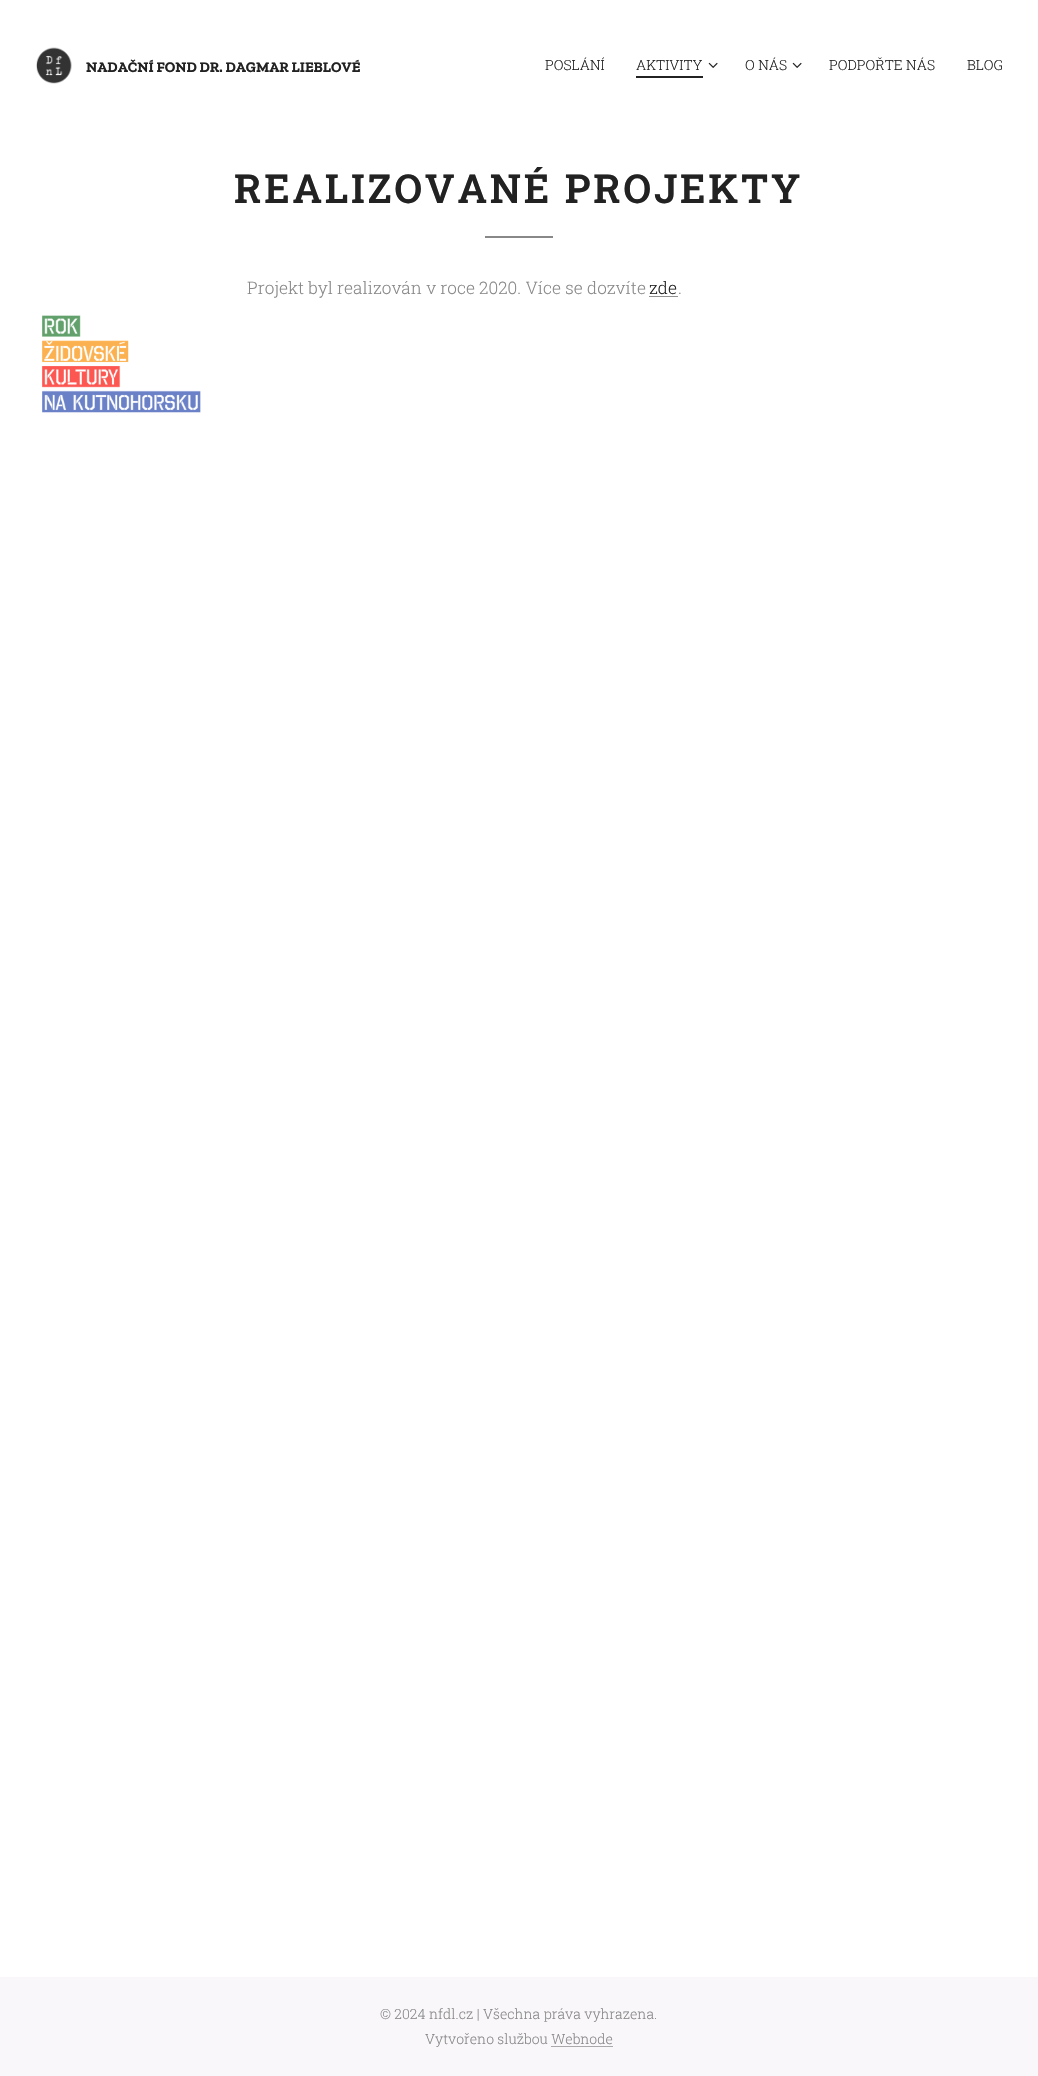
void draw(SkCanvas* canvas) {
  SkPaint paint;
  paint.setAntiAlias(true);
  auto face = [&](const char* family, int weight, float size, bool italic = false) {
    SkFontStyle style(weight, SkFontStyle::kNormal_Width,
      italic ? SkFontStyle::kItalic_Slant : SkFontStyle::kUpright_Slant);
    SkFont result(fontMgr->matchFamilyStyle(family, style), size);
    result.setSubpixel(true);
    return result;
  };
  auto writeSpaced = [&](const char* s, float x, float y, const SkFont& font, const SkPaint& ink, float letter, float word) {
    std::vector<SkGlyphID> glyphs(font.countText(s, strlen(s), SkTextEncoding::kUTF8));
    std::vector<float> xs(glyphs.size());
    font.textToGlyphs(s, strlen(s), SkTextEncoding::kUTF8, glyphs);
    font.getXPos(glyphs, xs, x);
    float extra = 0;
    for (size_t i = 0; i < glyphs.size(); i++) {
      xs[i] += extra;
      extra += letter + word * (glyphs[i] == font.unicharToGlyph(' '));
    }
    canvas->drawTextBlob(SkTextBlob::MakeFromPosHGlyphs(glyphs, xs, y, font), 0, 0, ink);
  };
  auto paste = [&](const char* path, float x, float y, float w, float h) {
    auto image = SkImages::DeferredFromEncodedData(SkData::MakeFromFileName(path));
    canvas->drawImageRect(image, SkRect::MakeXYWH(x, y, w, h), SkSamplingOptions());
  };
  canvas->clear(0xffffffff);
  paste("img/1.png", 36, 47, 36, 37);
  paint.setColor(0xff222222);
  canvas->drawRect(SkRect::MakeXYWH(636, 76, 67, 2), paint);
  paste("img/2.png", 708, 62, 10, 6);
  paste("img/2.png", 792, 62, 10, 6);
  paint.setColor(0xff888888);
  canvas->drawRect(SkRect::MakeXYWH(485, 236, 68, 2), paint);
  paint.setColor(0xff919191);
  canvas->drawRect(SkRect::MakeXYWH(649, 296, 29, 1), paint);
  paste("img/3.png", 42, 315, 159, 98);
  paint.setColor(0xfff9f7fa);
  canvas->drawRect(SkRect::MakeXYWH(0, 1977, 1038, 99), paint);
  auto f0 = face("Zilla Slab", 700, 14.75f);
  paint.setColor(0xff222222);
  canvas->drawString("NADAČNÍ FOND DR. DAGMAR LIEBLOVÉ", 86, 72, f0, paint);
  auto f1 = face("Roboto Slab", 300, 14);
  {
    const struct { const char* s; float x, y; } items[] = {
      {"POSLÁNÍ", 545, 70},
      {"AKTIVITY", 636, 70},
      {"O NÁS", 745, 70},
      {"PODPOŘTE NÁS", 829, 70},
      {"BLOG", 967, 70},
    };
    for (auto [s, x, y] : items) {
      canvas->drawString(s, x, y, f1, paint);
    }
  }
  auto f2 = face("Roboto Slab", 600, 40);
  writeSpaced("REALIZOVANÉ PROJEKTY", 234, 203, f2, paint, 2.75f, 0);
  auto f3 = face("Roboto Slab", 300, 17.2f);
  paint.setColor(0xff888888);
  canvas->drawString("Projekt byl realizován v roce 2020. Více se dozvíte", 247, 294, f3, paint);
  paint.setColor(0xff222222);
  canvas->drawString("zde", 649, 294, f3, paint);
  paint.setColor(0xff888888);
  canvas->drawString(".", 678, 294, f3, paint);
  canvas->drawString("© 2024 nfdl.cz | Všechna práva vyhrazena.", 380, 2019, f1, paint);
  canvas->drawString("Vytvořeno službou Webnode", 425, 2044, f1, paint);
  paint.setColor(0xffa9a9aa);
  canvas->drawRect(SkRect::MakeXYWH(551, 2046, 62, 1), paint);
}
